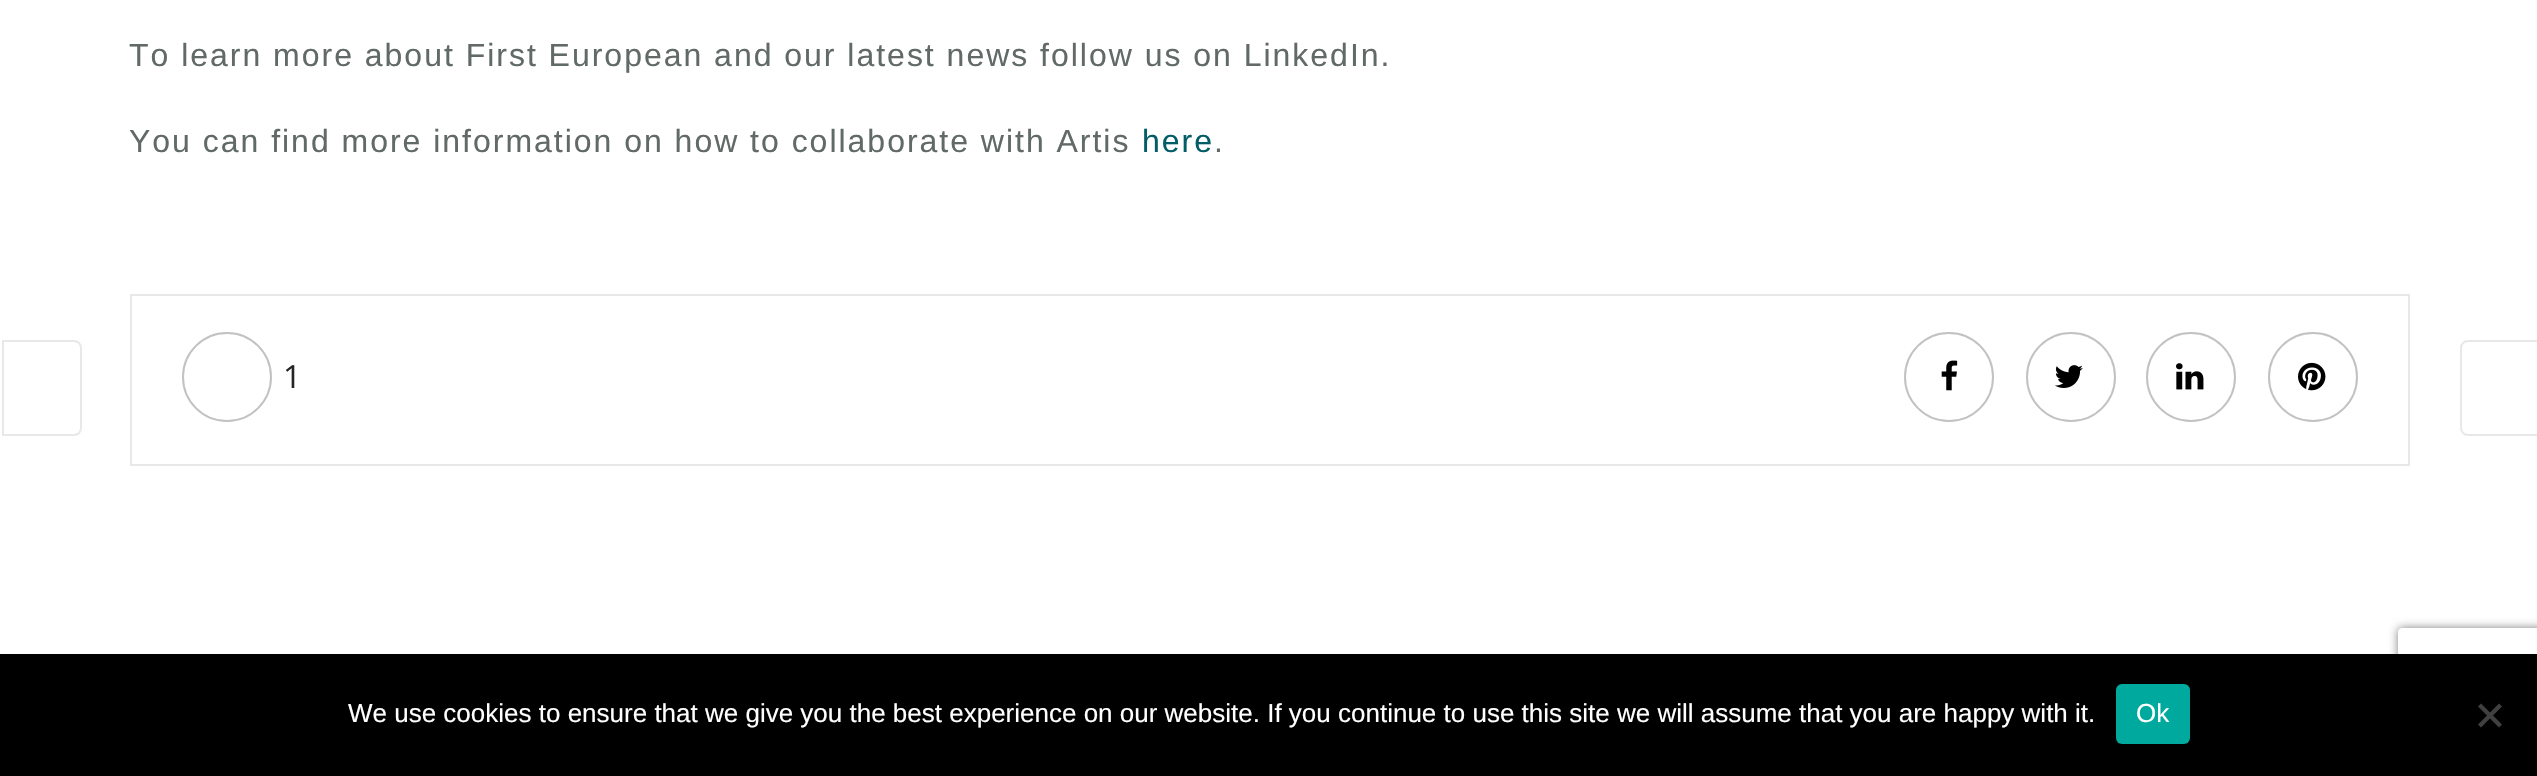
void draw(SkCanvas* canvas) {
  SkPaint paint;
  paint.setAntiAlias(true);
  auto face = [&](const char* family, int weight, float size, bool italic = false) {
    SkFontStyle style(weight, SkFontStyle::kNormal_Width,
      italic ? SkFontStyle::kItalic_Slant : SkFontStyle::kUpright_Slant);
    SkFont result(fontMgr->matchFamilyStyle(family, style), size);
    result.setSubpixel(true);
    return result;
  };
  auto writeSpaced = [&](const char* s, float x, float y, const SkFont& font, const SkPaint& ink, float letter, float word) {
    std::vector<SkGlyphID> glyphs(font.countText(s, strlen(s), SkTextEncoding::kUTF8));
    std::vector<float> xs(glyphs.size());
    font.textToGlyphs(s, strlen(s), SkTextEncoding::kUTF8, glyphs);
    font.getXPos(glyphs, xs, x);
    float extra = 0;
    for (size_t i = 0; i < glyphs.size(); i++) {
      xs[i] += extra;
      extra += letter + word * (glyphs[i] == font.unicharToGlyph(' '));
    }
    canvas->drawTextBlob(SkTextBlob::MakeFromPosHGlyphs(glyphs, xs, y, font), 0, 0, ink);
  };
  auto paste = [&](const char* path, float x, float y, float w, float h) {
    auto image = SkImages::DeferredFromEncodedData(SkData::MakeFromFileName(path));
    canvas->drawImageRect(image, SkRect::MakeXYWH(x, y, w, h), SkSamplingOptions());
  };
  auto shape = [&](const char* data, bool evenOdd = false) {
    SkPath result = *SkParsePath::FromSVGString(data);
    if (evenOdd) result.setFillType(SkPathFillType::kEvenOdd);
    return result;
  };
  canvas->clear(0xffffffff);
  paint.setStroke(true);
  paint.setStrokeWidth(2);
  paint.setColor(0xffe8e8e8);
  canvas->drawRect(SkRect::MakeXYWH(131, 295, 2278, 170), paint);
  paint.setColor(0xffc2c2c2);
  canvas->drawCircle(227, 377, 44, paint);
  canvas->drawCircle(1949, 377, 44, paint);
  paste("img/1.png", 1941, 360, 17, 31);
  canvas->drawCircle(2071, 377, 44, paint);
  paste("img/2.png", 2055, 365, 28, 23);
  canvas->drawCircle(2191, 377, 44, paint);
  paste("img/3.png", 2176, 363, 28, 27);
  canvas->drawCircle(2313, 377, 44, paint);
  paste("img/4.png", 2298, 362, 28, 29);
  paint.setColor(0xffe8e8e8);
  canvas->drawPath(shape("M3 341H74C78 341 81 344 81 348V428C81 432 78 435 74 435H3Z"), paint);
  canvas->drawPath(shape("M2468 341H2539V435H2468C2464 435 2461 432 2461 428V348C2461 344 2464 341 2468 341Z"), paint);
  canvas->save();
  canvas->clipPath(shape("M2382 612H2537V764H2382ZM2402 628H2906C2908 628 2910 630 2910 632V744C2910 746 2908 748 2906 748H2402C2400 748 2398 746 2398 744V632C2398 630 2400 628 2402 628Z", true), true);
  paint.setStroke(false);
  paint.setColor(0xff808080);
  paint.setMaskFilter(SkMaskFilter::MakeBlur(kNormal_SkBlurStyle, 5));
  canvas->drawRoundRect(SkRect::MakeXYWH(2398, 628, 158, 120), 4, 4, paint);
  paint.setMaskFilter(nullptr);
  canvas->restore();
  paint.setColor(0xff000000);
  canvas->drawRect(SkRect::MakeXYWH(0, 654, 2537, 122), paint);
  paint.setColor(0xff00a99d);
  canvas->drawRoundRect(SkRect::MakeXYWH(2116, 684, 74, 60), 6, 6, paint);
  paint.setColor(0xff404040);
  canvas->drawPath(shape("M2499 703.5L2502 706.5L2481 727.5L2478 724.5Z"), paint);
  canvas->drawPath(shape("M2478 706.5L2481 703.5L2502 724.5L2499 727.5Z"), paint);
  auto f0 = face("Liberation Sans", 400, 32);
  paint.setColor(0xff616a66);
  writeSpaced("To learn more about First European and our latest news follow us on LinkedIn.", 129, 66, f0, paint, 1.98f, 0);
  writeSpaced("You can find more information on how to collaborate with Artis", 129, 152, f0, paint, 1.98f, 0);
  paint.setColor(0xff035d67);
  writeSpaced("here", 1142, 152, f0, paint, 1.98f, 0);
  paint.setColor(0xff616a66);
  writeSpaced(".", 1214, 152, f0, paint, 1.98f, 0);
  auto f1 = face("Open Sans", 400, 32);
  paint.setColor(0xff252525);
  writeSpaced("1", 283, 388, f1, paint, 1.98f, 0);
  auto f2 = face("Liberation Sans", 400, 26);
  paint.setColor(0xffffffff);
  canvas->drawString("We use cookies to ensure that we give you the best experience on our website. If you continue to use this site we will assume that you are happy with it.", 348, 722, f2, paint);
  canvas->drawString("Ok", 2136, 722, f2, paint);
}
